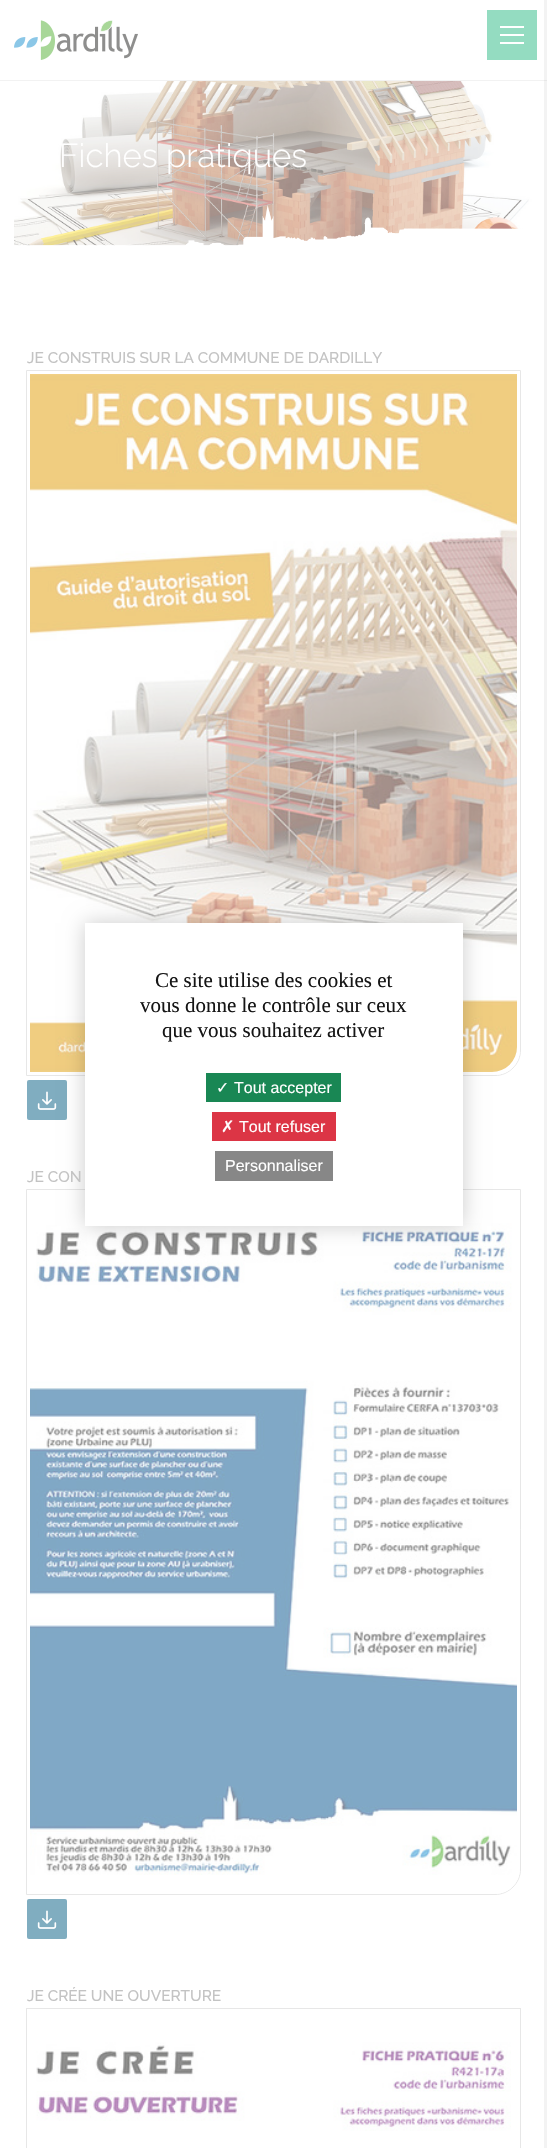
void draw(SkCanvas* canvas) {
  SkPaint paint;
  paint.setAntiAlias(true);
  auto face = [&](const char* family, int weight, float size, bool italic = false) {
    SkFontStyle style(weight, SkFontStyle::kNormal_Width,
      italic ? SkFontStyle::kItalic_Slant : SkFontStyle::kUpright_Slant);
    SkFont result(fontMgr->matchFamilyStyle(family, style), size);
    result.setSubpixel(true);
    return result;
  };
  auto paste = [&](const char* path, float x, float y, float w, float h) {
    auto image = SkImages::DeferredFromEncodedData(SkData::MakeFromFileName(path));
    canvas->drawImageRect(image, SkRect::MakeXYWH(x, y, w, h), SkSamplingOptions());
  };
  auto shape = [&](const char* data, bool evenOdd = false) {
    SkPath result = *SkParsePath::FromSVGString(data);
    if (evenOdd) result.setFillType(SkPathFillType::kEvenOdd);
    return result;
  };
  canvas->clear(0xffffffff);
  paint.setColor(0xfff3f3f3);
  canvas->drawRect(SkRect::MakeXYWH(544, 0, 3, 2148), paint);
  paste("img/1.png", 14, 20, 124, 40);
  {
    const struct { float x, y, w, h; SkColor color; } items[] = {
      {487, 10, 50, 50, 0xff94dcc1},
      {500, 26, 24, 2, 0xffffffff},
      {500, 34, 24, 2, 0xffffffff},
      {500, 42, 24, 2, 0xffffffff},
      {0, 80, 547, 1, 0xfff2f2f2},
      {544, 80, 3, 1, 0xffe7e7e7},
    };
    for (auto [x, y, w, h, color] : items) {
      paint.setColor(color);
      canvas->drawRect(SkRect::MakeXYWH(x, y, w, h), paint);
    }
  }
  paste("img/2.png", 14, 81, 519, 165);
  paste("img/3.png", 14, 205, 519, 56);
  paint.setStroke(true);
  paint.setStrokeWidth(1);
  canvas->drawPath(shape("M26.5 370.5H520.5V1050C520.5 1064 509 1075.5 495 1075.5H26.5Z"), paint);
  paint.setStroke(false);
  paint.setColor(0xffffffff);
  canvas->drawPath(shape("M28.5 372.5H518.5V1050C518.5 1063 508 1073.5 495 1073.5H28.5Z"), paint);
  paint.setStroke(true);
  paint.setStrokeWidth(3);
  canvas->drawPath(shape("M28.5 372.5H518.5V1050C518.5 1063 508 1073.5 495 1073.5H28.5Z"), paint);
  paste("img/4.png", 30, 374, 487, 698);
  paint.setStroke(false);
  paint.setColor(0xff80adc0);
  canvas->drawRoundRect(SkRect::MakeXYWH(27, 1080, 40, 40), 2, 2, paint);
  paste("img/5.png", 37, 1091, 20, 19);
  paint.setStroke(true);
  paint.setStrokeWidth(1);
  paint.setColor(0xffe7e7e7);
  canvas->drawPath(shape("M26.5 1189.5H520.5V1869C520.5 1883 509 1894.5 495 1894.5H26.5Z"), paint);
  paint.setStroke(false);
  paint.setColor(0xffffffff);
  canvas->drawPath(shape("M28.5 1191.5H518.5V1869C518.5 1882 508 1892.5 495 1892.5H28.5Z"), paint);
  paint.setStroke(true);
  paint.setStrokeWidth(3);
  canvas->drawPath(shape("M28.5 1191.5H518.5V1869C518.5 1882 508 1892.5 495 1892.5H28.5Z"), paint);
  paste("img/6.png", 30, 1223, 487, 652);
  paint.setStroke(false);
  paint.setColor(0xff80adc0);
  canvas->drawRoundRect(SkRect::MakeXYWH(27, 1899, 40, 40), 2, 2, paint);
  paste("img/5.png", 37, 1910, 20, 19);
  paint.setStroke(true);
  paint.setStrokeWidth(1);
  paint.setColor(0xffe7e7e7);
  canvas->drawRect(SkRect::MakeXYWH(26.5f, 2008.5f, 494, 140), paint);
  paste("img/7.png", 36, 2042, 475, 89);
  paint.setStroke(false);
  paint.setColor(0x33000000);
  paint.setMaskFilter(SkMaskFilter::MakeBlur(kNormal_SkBlurStyle, 10));
  canvas->drawRect(SkRect::MakeXYWH(85, 923, 378, 303), paint);
  paint.setMaskFilter(nullptr);
  {
    const struct { float x, y, w, h; SkColor color; } items[] = {
      {85, 923, 378, 303, 0xffffffff},
      {206, 1073, 135, 29, 0xff198754},
      {212, 1112, 124, 29, 0xffdc3545},
      {215, 1151, 118, 30, 0xff878787},
    };
    for (auto [x, y, w, h, color] : items) {
      paint.setColor(color);
      canvas->drawRect(SkRect::MakeXYWH(x, y, w, h), paint);
    }
  }
  auto f0 = face("Raleway", 300, 33);
  paint.setColor(0xffffffff);
  canvas->drawString("Fiches pratiques", 59, 167, f0, paint);
  auto f1 = face("Raleway", 500, 15.4f);
  paint.setColor(0xffc3c3c3);
  {
    const struct { const char* s; float x, y; } items[] = {
      {"JE CONSTRUIS SUR LA COMMUNE DE DARDILLY", 27, 363},
      {"JE CON", 27, 1182},
      {"JE CRÉE UNE OUVERTURE", 27, 2001},
    };
    for (auto [s, x, y] : items) {
      canvas->drawString(s, x, y, f1, paint);
    }
  }
  auto f2 = face("Liberation Serif", 400, 21);
  paint.setColor(0xff151515);
  {
    const struct { const char* s; float x, y; } items[] = {
      {"Ce site utilise des cookies et", 155, 987},
      {"vous donne le contrôle sur ceux", 140, 1012},
      {"que vous souhaitez activer", 162, 1037},
    };
    for (auto [s, x, y] : items) {
      canvas->drawString(s, x, y, f2, paint);
    }
  }
  auto f3 = face("DejaVu Sans", 400, 16);
  paint.setColor(0xffffffff);
  canvas->drawString("✓", 216, 1093, f3, paint);
  auto f4 = face("Liberation Sans", 400, 16);
  canvas->drawString("Tout accepter", 234, 1093, f4, paint);
  canvas->drawString("✗", 221, 1132, f3, paint);
  canvas->drawString("Tout refuser", 239, 1132, f4, paint);
  canvas->drawString("Personnaliser", 225, 1171, f4, paint);
}
